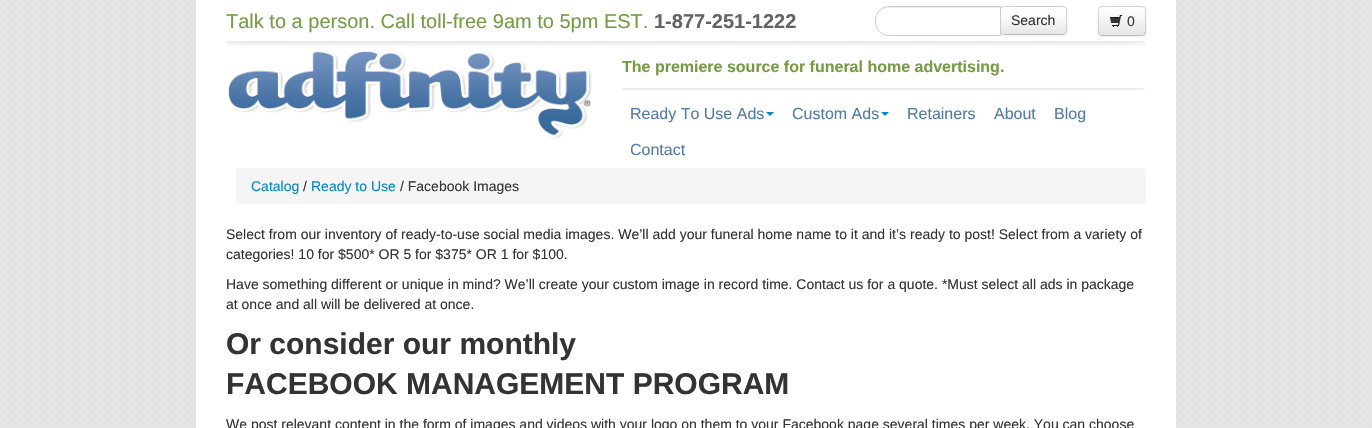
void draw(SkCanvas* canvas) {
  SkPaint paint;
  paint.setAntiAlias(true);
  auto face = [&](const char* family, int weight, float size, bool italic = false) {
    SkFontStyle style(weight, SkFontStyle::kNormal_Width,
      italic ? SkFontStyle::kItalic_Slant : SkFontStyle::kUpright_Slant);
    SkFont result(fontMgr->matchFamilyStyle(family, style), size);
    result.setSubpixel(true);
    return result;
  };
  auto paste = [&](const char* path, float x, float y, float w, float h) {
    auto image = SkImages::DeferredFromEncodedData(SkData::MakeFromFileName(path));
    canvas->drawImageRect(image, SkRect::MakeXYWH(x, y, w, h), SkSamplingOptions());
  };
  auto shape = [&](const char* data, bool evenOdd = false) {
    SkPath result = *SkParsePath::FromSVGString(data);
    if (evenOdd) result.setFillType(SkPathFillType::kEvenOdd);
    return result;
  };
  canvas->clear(0xffffffff);
  paste("img/1.png", 0, 0, 1372, 428);
  paint.setColor(0x0d000000);
  paint.setMaskFilter(SkMaskFilter::MakeBlur(kNormal_SkBlurStyle, 1));
  canvas->drawRoundRect(SkRect::MakeXYWH(1000, 7, 67, 29), 4, 4, paint);
  paint.setMaskFilter(nullptr);
  canvas->save();
  canvas->clipPath(shape("M1004 6H1063C1065 6 1067 8 1067 10V31C1067 33 1065 35 1063 35H1004C1002 35 1000 33 1000 31V10C1000 8 1002 6 1004 6Z"), true);
  {
    const SkColor colors[] = {0xffffffff, 0xffffffff, 0xffe6e6e6};
    const float stops[] = {0, 0.25f, 1};
    const SkPoint ends[] = {{1034, 7}, {1034, 34}};
    paint.setShader(SkGradientShader::MakeLinear(ends, colors, stops, 3, SkTileMode::kClamp));
    paint.setAlpha(255);
  }
  canvas->drawRect(SkRect::MakeXYWH(1001, 7, 65, 27), paint);
  canvas->restore();
  paint.setStroke(true);
  paint.setStrokeWidth(1);
  paint.setShader(nullptr);
  paint.setColor(0xffbbbbbb);
  canvas->drawPath(shape("M1065.5 33.5L1063.5 34.5H1003.5L1001.5 33.5"), paint);
  paint.setColor(0xffcccccc);
  canvas->drawPath(shape("M1001.5 33.5C999.5 31.5 1000.5 23 1000.5 20.5C1000.5 5 998 6.5 1014 6.5H1053C1069 6.5 1066.5 5 1066.5 20.5C1066.5 23 1067.5 31.5 1065.5 33.5"), paint);
  paint.setStroke(false);
  paint.setColor(0xffffffff);
  canvas->drawPath(shape("M889 6H1001V36H889C881.5 36 875 29.5 875 22V20C875 12.5 881.5 6 889 6Z"), paint);
  paint.setColor(0xffececec);
  canvas->drawPath(shape("M889 8H1000V7H889C882 7 876 13 876 20V21C876 14 882 8 889 8Z"), paint);
  paint.setStroke(true);
  paint.setColor(0xffcccccc);
  canvas->drawPath(shape("M889 6.5H1000.5V35.5H889C881.5 35.5 875.5 29.5 875.5 22V20C875.5 12.5 881.5 6.5 889 6.5Z"), paint);
  paint.setStroke(false);
  paint.setColor(0x0d000000);
  paint.setMaskFilter(SkMaskFilter::MakeBlur(kNormal_SkBlurStyle, 1));
  canvas->drawRoundRect(SkRect::MakeXYWH(1098, 7, 48, 30), 4, 4, paint);
  paint.setMaskFilter(nullptr);
  paint.setColor(0xfff5f5f5);
  canvas->drawRoundRect(SkRect::MakeXYWH(1098, 6, 48, 30), 4, 4, paint);
  canvas->save();
  canvas->clipPath(shape("M1102 6H1142C1144 6 1146 8 1146 10V32C1146 34 1144 36 1142 36H1102C1100 36 1098 34 1098 32V10C1098 8 1100 6 1102 6Z"), true);
  {
    const SkColor colors[] = {0xffffffff, 0xffe6e6e6};
    const float stops[] = {0, 1};
    const SkPoint ends[] = {{1122, 7}, {1122, 35}};
    paint.setShader(SkGradientShader::MakeLinear(ends, colors, stops, 2, SkTileMode::kClamp));
    paint.setAlpha(255);
  }
  canvas->drawRect(SkRect::MakeXYWH(1098, 7, 48, 28), paint);
  canvas->restore();
  paint.setShader(nullptr);
  paint.setColor(0xffffffff);
  canvas->drawPath(shape("M1102 8H1129C1138 8 1142 7 1144 9C1145 9 1145 10 1145 12C1145 5 1142 7 1135 7H1109C1106 7 1099 5 1099 10C1099 9 1100 8 1102 8ZM1099 33V26Z", true), paint);
  paint.setStroke(true);
  paint.setColor(0xffb8b8b8);
  canvas->drawPath(shape("M1144.5 34.5C1144 35 1143 35.5 1142 35.5H1102C1101 35.5 1100 35 1099.5 34.5"), paint);
  paint.setColor(0x26000000);
  canvas->drawPath(shape("M1099.5 34.5C1097.5 32.5 1098.5 24 1098.5 21C1098.5 7.5 1095.5 6.5 1108.5 6.5H1135.5C1148.5 6.5 1145.5 7.5 1145.5 21C1145.5 24 1146.5 32.5 1144.5 34.5"), paint);
  paste("img/2.png", 1110, 15, 12, 13);
  paste("img/3.png", 226, 41, 920, 6);
  paste("img/4.png", 228, 50, 364, 89);
  paste("img/5.png", 622, 88, 523, 3);
  paint.setStroke(false);
  paint.setColor(0xff0088cc);
  canvas->drawPath(shape("M766 112H774L770 116Z"), paint);
  canvas->drawPath(shape("M881 112H889L885 116Z"), paint);
  paint.setColor(0xfff5f5f5);
  canvas->drawRoundRect(SkRect::MakeXYWH(236, 168, 910, 36), 4, 4, paint);
  auto f0 = face("Liberation Sans", 400, 20);
  paint.setColor(0xff759c43);
  canvas->drawString("Talk to a person. Call toll-free 9am to 5pm EST.", 226, 28, f0, paint);
  auto f1 = face("Liberation Sans", 700, 20);
  paint.setColor(0xff636363);
  canvas->drawString("1-877-251-1222", 654, 28, f1, paint);
  auto f2 = face("Liberation Sans", 400, 14);
  paint.setColor(0xff333333);
  canvas->drawString("Search", 1011, 25, f2, paint);
  canvas->drawString("0", 1127, 26, f2, paint);
  auto f3 = face("Liberation Sans", 700, 16);
  paint.setColor(0xff759c43);
  canvas->drawString("The premiere source for funeral home advertising.", 622, 72, f3, paint);
  auto f4 = face("Liberation Sans", 400, 16);
  paint.setColor(0xff527aab);
  {
    const struct { const char* s; float x, y; } items[] = {
      {"Ready To Use Ads", 630, 119},
      {"Custom Ads", 792, 119},
      {"Retainers", 907, 119},
      {"About", 994, 119},
      {"Blog", 1054, 119},
      {"Contact", 630, 155},
    };
    for (auto [s, x, y] : items) {
      canvas->drawString(s, x, y, f4, paint);
    }
  }
  paint.setColor(0xff0088cc);
  canvas->drawString("Catalog", 251, 191, f2, paint);
  paint.setColor(0xff333333);
  canvas->drawString("/", 303, 191, f2, paint);
  paint.setColor(0xff0088cc);
  canvas->drawString("Ready to Use", 311, 191, f2, paint);
  paint.setColor(0xff333333);
  {
    const struct { const char* s; float x, y; } items[] = {
      {"/ Facebook Images", 400, 191},
      {"Select from our inventory of ready-to-use social media images. We’ll add your funeral home name to it and it’s ready to post! Select from a variety of", 226, 239},
      {"categories! 10 for $500* OR 5 for $375* OR 1 for $100.", 226, 259},
      {"Have something different or unique in mind? We’ll create your custom image in record time. Contact us for a quote. *Must select all ads in package", 226, 289},
      {"at once and all will be delivered at once.", 226, 309},
    };
    for (auto [s, x, y] : items) {
      canvas->drawString(s, x, y, f2, paint);
    }
  }
  auto f5 = face("Liberation Sans", 700, 30);
  canvas->drawString("Or consider our monthly", 226, 354, f5, paint);
  canvas->drawString("FACEBOOK MANAGEMENT PROGRAM", 226, 394, f5, paint);
  canvas->drawString("We post relevant content in the form of images and videos with your logo on them to your Facebook page several times per week. You can choose", 226, 429, f2, paint);
}
